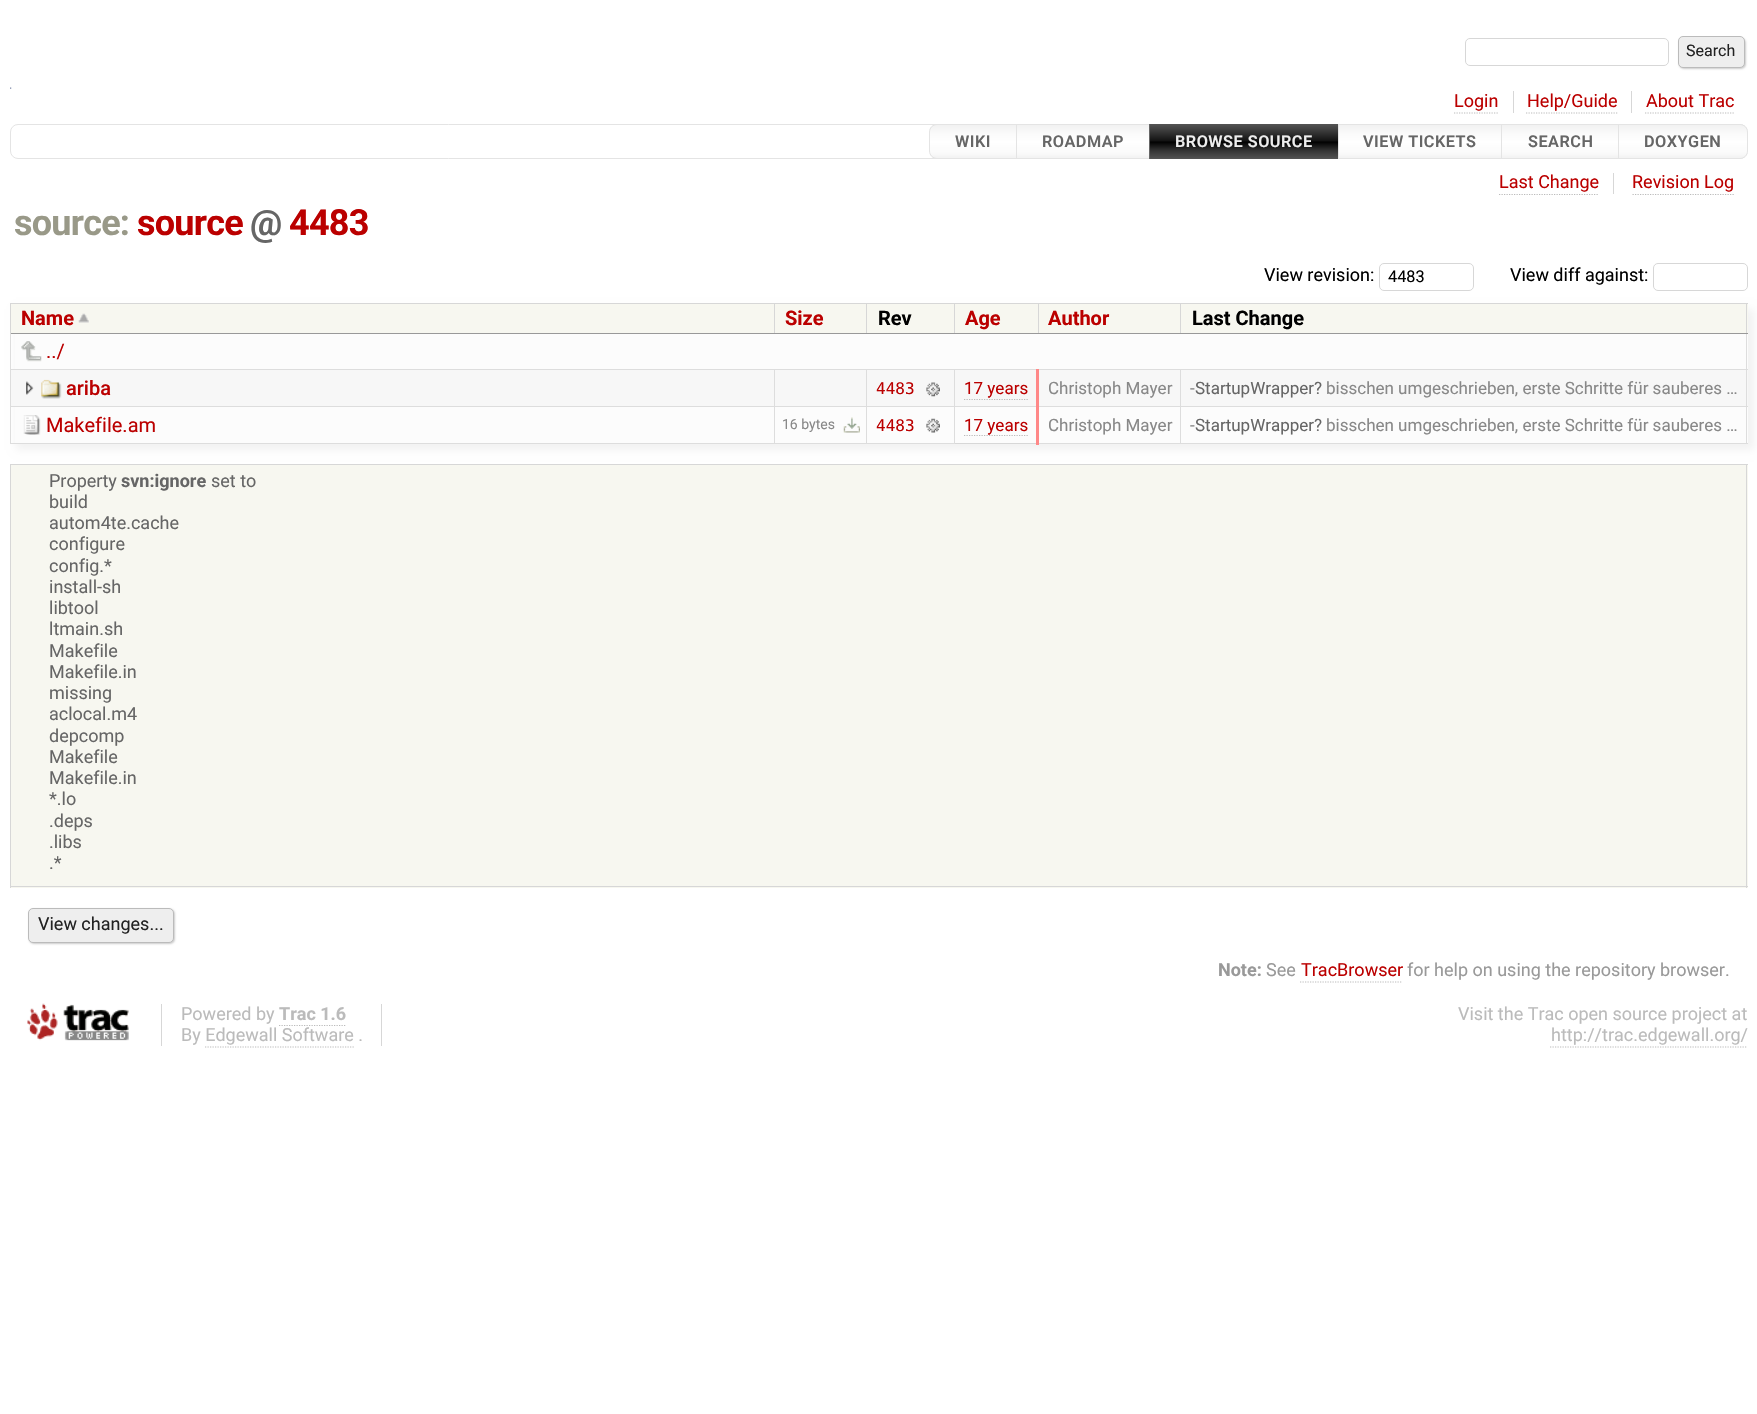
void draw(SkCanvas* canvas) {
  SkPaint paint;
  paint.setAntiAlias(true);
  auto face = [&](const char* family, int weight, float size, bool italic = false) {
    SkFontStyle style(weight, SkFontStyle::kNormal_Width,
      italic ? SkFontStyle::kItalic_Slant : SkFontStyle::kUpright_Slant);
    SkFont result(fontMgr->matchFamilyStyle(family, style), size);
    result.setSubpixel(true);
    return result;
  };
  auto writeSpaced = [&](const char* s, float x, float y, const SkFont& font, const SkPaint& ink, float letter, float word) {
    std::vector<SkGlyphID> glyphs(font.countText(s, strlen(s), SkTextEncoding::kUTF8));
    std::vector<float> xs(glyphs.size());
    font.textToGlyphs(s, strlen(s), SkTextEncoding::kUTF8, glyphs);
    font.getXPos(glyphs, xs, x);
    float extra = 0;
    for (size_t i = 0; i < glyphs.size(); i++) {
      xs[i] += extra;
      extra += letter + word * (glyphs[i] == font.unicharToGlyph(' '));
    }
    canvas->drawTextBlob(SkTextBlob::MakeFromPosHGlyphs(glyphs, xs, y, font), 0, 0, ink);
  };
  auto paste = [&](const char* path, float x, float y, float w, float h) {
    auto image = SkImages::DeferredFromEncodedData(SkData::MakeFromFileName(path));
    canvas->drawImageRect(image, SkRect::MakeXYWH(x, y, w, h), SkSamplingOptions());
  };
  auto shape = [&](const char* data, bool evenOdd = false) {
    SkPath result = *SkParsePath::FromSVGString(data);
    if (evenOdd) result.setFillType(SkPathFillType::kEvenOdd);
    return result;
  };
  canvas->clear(0xffffffff);
  paint.setStroke(true);
  paint.setStrokeWidth(1);
  paint.setColor(0xffd7d7d7);
  canvas->drawRoundRect(SkRect::MakeXYWH(1465.5f, 38.5f, 203, 27), 4.5f, 4.5f, paint);
  paint.setStroke(false);
  paint.setColor(0xffcccccc);
  paint.setMaskFilter(SkMaskFilter::MakeBlur(kNormal_SkBlurStyle, 1));
  canvas->drawRoundRect(SkRect::MakeXYWH(1679, 38, 67, 31), 5, 5, paint);
  paint.setMaskFilter(nullptr);
  paint.setColor(0xffeeeeee);
  canvas->drawRoundRect(SkRect::MakeXYWH(1678.5f, 36.5f, 66, 31), 4.5f, 4.5f, paint);
  paint.setStroke(true);
  paint.setColor(0xffbbbbbb);
  canvas->drawRoundRect(SkRect::MakeXYWH(1678.5f, 36.5f, 66, 31), 4.5f, 4.5f, paint);
  paste("img/1.png", 10, 87, 2, 2);
  paint.setStroke(false);
  paint.setColor(0xffd7d7d7);
  canvas->drawRect(SkRect::MakeXYWH(1513, 91, 1, 22), paint);
  paint.setStroke(true);
  paint.setStrokeWidth(1.2f);
  paint.setColor(0xffbbbbbb);
  paint.setPathEffect(SkDashPathEffect::Make({{1.25f, 1.25f}}, 0));
  canvas->drawPath(shape("M1454 113H1499"), paint);
  paint.setPathEffect(nullptr);
  paint.setStroke(false);
  paint.setColor(0xffd7d7d7);
  canvas->drawRect(SkRect::MakeXYWH(1631, 91, 1, 22), paint);
  paint.setStroke(true);
  paint.setColor(0xffbbbbbb);
  paint.setPathEffect(SkDashPathEffect::Make({{1.25f, 1.25f}}, 0));
  canvas->drawPath(shape("M1526 113H1617.5"), paint);
  paint.setPathEffect(nullptr);
  paint.setPathEffect(SkDashPathEffect::Make({{1.25f, 1.25f}}, 0));
  canvas->drawPath(shape("M1645 113H1734"), paint);
  paint.setPathEffect(nullptr);
  paint.setStrokeWidth(1);
  paint.setColor(0xffe4e4e4);
  canvas->drawRoundRect(SkRect::MakeXYWH(10.5f, 124.5f, 1737, 34), 7.5f, 7.5f, paint);
  canvas->save();
  canvas->clipPath(shape("M937 124H1018V159H937C932.5 159 929 155.5 929 151V132C929 127.5 932.5 124 937 124Z"), true);
  paint.setStroke(false);
  {
    const SkColor colors[] = {0xfff2f2f2, 0xfffafafa, 0xfffefefe, 0xffffffff, 0xfffafafa, 0xfff2f2f2};
    const float stops[] = {0, 0.25f, 0.49f, 0.51f, 0.85f, 1};
    const SkPoint ends[] = {{973, 125}, {973, 158}};
    paint.setShader(SkGradientShader::MakeLinear(ends, colors, stops, 6, SkTileMode::kClamp));
    paint.setAlpha(255);
  }
  canvas->drawRect(SkRect::MakeXYWH(929, 125, 87, 33), paint);
  canvas->restore();
  paint.setStroke(true);
  paint.setShader(nullptr);
  paint.setColor(0xffe4e4e4);
  canvas->drawPath(shape("M937 124.5H1017.5V158.5H937C933 158.5 929.5 155 929.5 151V132C929.5 128 933 124.5 937 124.5Z"), paint);
  paint.setStroke(false);
  {
    const SkColor colors[] = {0xfff2f2f2, 0xfffafafa, 0xfffefefe, 0xffffffff, 0xfffafafa, 0xfff2f2f2};
    const float stops[] = {0, 0.25f, 0.49f, 0.51f, 0.85f, 1};
    const SkPoint ends[] = {{1083, 125}, {1083, 158}};
    paint.setShader(SkGradientShader::MakeLinear(ends, colors, stops, 6, SkTileMode::kClamp));
    paint.setAlpha(255);
  }
  canvas->drawRect(SkRect::MakeXYWH(1017, 125, 132, 33), paint);
  paint.setStroke(true);
  paint.setShader(nullptr);
  paint.setColor(0xffe4e4e4);
  canvas->drawRect(SkRect::MakeXYWH(1016.5f, 124.5f, 133, 34), paint);
  paint.setColor(0xff666666);
  canvas->drawRect(SkRect::MakeXYWH(1149.5f, 124.5f, 189, 34), paint);
  paint.setStroke(false);
  {
    const SkColor colors[] = {0xff555555, 0xff333333, 0xff111111, 0xff000000, 0xff333333, 0xff555555};
    const float stops[] = {0, 0.25f, 0.49f, 0.51f, 0.75f, 1};
    const SkPoint ends[] = {{1244, 124}, {1244, 159}};
    paint.setShader(SkGradientShader::MakeLinear(ends, colors, stops, 6, SkTileMode::kClamp));
    paint.setAlpha(255);
  }
  canvas->drawRect(SkRect::MakeXYWH(1150, 124, 188, 35), paint);
  {
    const SkColor colors[] = {0xfff2f2f2, 0xfffafafa, 0xfffefefe, 0xffffffff, 0xfffafafa, 0xfff2f2f2};
    const float stops[] = {0, 0.25f, 0.49f, 0.51f, 0.85f, 1};
    const SkPoint ends[] = {{1420, 125}, {1420, 158}};
    paint.setShader(SkGradientShader::MakeLinear(ends, colors, stops, 6, SkTileMode::kClamp));
    paint.setAlpha(255);
  }
  canvas->drawRect(SkRect::MakeXYWH(1339, 125, 162, 33), paint);
  paint.setStroke(true);
  paint.setShader(nullptr);
  paint.setColor(0xffe4e4e4);
  canvas->drawRect(SkRect::MakeXYWH(1338.5f, 124.5f, 164, 34), paint);
  paint.setStroke(false);
  {
    const SkColor colors[] = {0xfff2f2f2, 0xfffafafa, 0xfffefefe, 0xffffffff, 0xfffafafa, 0xfff2f2f2};
    const float stops[] = {0, 0.25f, 0.49f, 0.51f, 0.85f, 1};
    const SkPoint ends[] = {{1560, 125}, {1560, 158}};
    paint.setShader(SkGradientShader::MakeLinear(ends, colors, stops, 6, SkTileMode::kClamp));
    paint.setAlpha(255);
  }
  canvas->drawRect(SkRect::MakeXYWH(1502, 125, 116, 33), paint);
  paint.setStroke(true);
  paint.setShader(nullptr);
  paint.setColor(0xffe4e4e4);
  canvas->drawRect(SkRect::MakeXYWH(1501.5f, 124.5f, 117, 34), paint);
  canvas->save();
  canvas->clipPath(shape("M1618 124H1740C1744.5 124 1748 127.5 1748 132V151C1748 155.5 1744.5 159 1740 159H1618Z"), true);
  paint.setStroke(false);
  {
    const SkColor colors[] = {0xfff2f2f2, 0xfffafafa, 0xfffefefe, 0xffffffff, 0xfffafafa, 0xfff2f2f2};
    const float stops[] = {0, 0.25f, 0.49f, 0.51f, 0.85f, 1};
    const SkPoint ends[] = {{1683, 125}, {1683, 158}};
    paint.setShader(SkGradientShader::MakeLinear(ends, colors, stops, 6, SkTileMode::kClamp));
    paint.setAlpha(255);
  }
  canvas->drawRect(SkRect::MakeXYWH(1619, 125, 129, 33), paint);
  canvas->restore();
  paint.setStroke(true);
  paint.setShader(nullptr);
  paint.setColor(0xffe4e4e4);
  canvas->drawPath(shape("M1618.5 124.5H1740C1744 124.5 1747.5 128 1747.5 132V151C1747.5 155 1744 158.5 1740 158.5H1618.5Z"), paint);
  paint.setStroke(false);
  paint.setColor(0xffd7d7d7);
  canvas->drawRect(SkRect::MakeXYWH(1613, 173, 1, 21), paint);
  paint.setStroke(true);
  paint.setStrokeWidth(1.2f);
  paint.setColor(0xffbbbbbb);
  paint.setPathEffect(SkDashPathEffect::Make({{1.25f, 1.25f}}, 0));
  canvas->drawPath(shape("M1499 194.5H1599"), paint);
  paint.setPathEffect(nullptr);
  paint.setPathEffect(SkDashPathEffect::Make({{1.25f, 1.25f}}, 0));
  canvas->drawPath(shape("M1632.5 194.5H1734"), paint);
  paint.setPathEffect(nullptr);
  paint.setStrokeWidth(1);
  paint.setColor(0xffd7d7d7);
  canvas->drawRoundRect(SkRect::MakeXYWH(1379.5f, 263.5f, 94, 27), 4.5f, 4.5f, paint);
  canvas->drawRoundRect(SkRect::MakeXYWH(1653.5f, 263.5f, 94, 27), 4.5f, 4.5f, paint);
  paint.setStroke(false);
  paint.setColor(0xfff2f2f2);
  paint.setMaskFilter(SkMaskFilter::MakeBlur(kNormal_SkBlurStyle, 4));
  canvas->drawRect(SkRect::MakeXYWH(16, 309, 1738, 141), paint);
  paint.setMaskFilter(nullptr);
  {
    const struct { float x, y, w, h; SkColor color; } items[] = {
      {955, 443, 81, 1, 0xffd7d7d7},
      {11, 304, 1737, 29, 0xfff7f7f0},
      {1180, 303, 568, 1, 0xffd7d7d7},
      {15, 334, 1733, 35, 0xfffcfcfc},
      {11, 370, 1737, 36, 0xfff7f7f7},
      {10, 369, 1738, 1, 0xffdddddd},
      {15, 407, 1733, 36, 0xfffcfcfc},
      {10, 406, 1738, 1, 0xffdddddd},
      {1746, 333, 1, 111, 0xffdddddd},
      {1746, 303, 1, 31, 0xffd7d7d7},
      {1180, 333, 568, 1, 0xff999999},
      {1180, 303, 1, 31, 0xffd7d7d7},
      {1038, 303, 143, 1, 0xffd7d7d7},
      {1038, 333, 143, 1, 0xff999999},
      {1038, 303, 1, 31, 0xffd7d7d7},
      {954, 303, 85, 1, 0xffd7d7d7},
      {954, 333, 85, 1, 0xff999999},
      {954, 303, 1, 31, 0xffd7d7d7},
      {866, 303, 89, 1, 0xffd7d7d7},
      {866, 333, 89, 1, 0xff999999},
      {866, 303, 1, 31, 0xffd7d7d7},
      {774, 303, 94, 1, 0xffd7d7d7},
      {774, 333, 94, 1, 0xff999999},
      {774, 303, 1, 31, 0xffd7d7d7},
      {10, 303, 765, 1, 0xffd7d7d7},
      {954, 369, 1, 75, 0xffdddddd},
      {866, 443, 89, 1, 0xffdddddd},
      {866, 369, 1, 75, 0xffdddddd},
      {774, 443, 94, 1, 0xffdddddd},
      {774, 369, 1, 75, 0xffdddddd},
      {10, 443, 765, 1, 0xffdddddd},
      {10, 333, 1, 111, 0xffdddddd},
      {10, 333, 765, 1, 0xff999999},
      {10, 303, 1, 31, 0xffd7d7d7},
    };
    for (auto [x, y, w, h, color] : items) {
      paint.setColor(color);
      canvas->drawRect(SkRect::MakeXYWH(x, y, w, h), paint);
    }
  }
  paste("img/2.png", 78, 313, 11, 10);
  paste("img/3.png", 21, 341, 21, 21);
  paste("img/4.png", 26, 381, 8, 14);
  paste("img/5.png", 41, 379, 21, 20);
  paste("img/6.png", 926, 382, 14, 15);
  paint.setStroke(true);
  paint.setStrokeWidth(1.2f);
  paint.setColor(0xffbbbbbb);
  paint.setPathEffect(SkDashPathEffect::Make({{1.25f, 1.25f}}, 0));
  canvas->drawPath(shape("M964 399.5H1029"), paint);
  paint.setPathEffect(nullptr);
  paste("img/7.png", 23, 415, 18, 20);
  paste("img/8.png", 843, 417, 17, 16);
  paste("img/9.png", 926, 418, 14, 15);
  paint.setStroke(false);
  {
    const struct { float x, y, w, h; SkColor color; } items[] = {
      {1180, 443, 568, 1, 0xffdddddd},
      {1180, 369, 1, 75, 0xffdddddd},
      {1038, 443, 143, 1, 0xffdddddd},
      {1036, 369, 3, 76, 0xffff8888},
    };
    for (auto [x, y, w, h, color] : items) {
      paint.setColor(color);
      canvas->drawRect(SkRect::MakeXYWH(x, y, w, h), paint);
    }
  }
  paint.setStroke(true);
  paint.setColor(0xffbbbbbb);
  paint.setPathEffect(SkDashPathEffect::Make({{1.25f, 1.25f}}, 0));
  canvas->drawPath(shape("M964 435.5H1029"), paint);
  paint.setPathEffect(nullptr);
  paint.setStroke(false);
  {
    const struct { float x, y, w, h; SkColor color; } items[] = {
      {11, 465, 1737, 423, 0xfff7f7f0},
      {10, 464, 1738, 1, 0xffd7d7d7},
      {1746, 464, 1, 424, 0xffd7d7d7},
      {10, 886, 1738, 1, 0xffd7d7d7},
      {10, 464, 1, 424, 0xffd7d7d7},
    };
    for (auto [x, y, w, h, color] : items) {
      paint.setColor(color);
      canvas->drawRect(SkRect::MakeXYWH(x, y, w, h), paint);
    }
  }
  paint.setColor(0xffcccccc);
  paint.setMaskFilter(SkMaskFilter::MakeBlur(kNormal_SkBlurStyle, 1));
  canvas->drawRoundRect(SkRect::MakeXYWH(29, 909, 146, 35), 5, 5, paint);
  paint.setMaskFilter(nullptr);
  paint.setColor(0xffeeeeee);
  canvas->drawRoundRect(SkRect::MakeXYWH(28.5f, 908.5f, 145, 34), 4.5f, 4.5f, paint);
  paint.setStroke(true);
  paint.setStrokeWidth(1);
  paint.setColor(0xffbbbbbb);
  canvas->drawRoundRect(SkRect::MakeXYWH(28.5f, 908.5f, 145, 34), 4.5f, 4.5f, paint);
  paint.setStrokeWidth(1.2f);
  paint.setPathEffect(SkDashPathEffect::Make({{1.25f, 1.25f}}, 0));
  canvas->drawPath(shape("M1300 982H1402.5"), paint);
  paint.setPathEffect(nullptr);
  paste("img/10.png", 27, 1003, 102, 38);
  paint.setStroke(false);
  paint.setColor(0xffd7d7d7);
  canvas->drawRect(SkRect::MakeXYWH(381, 1004, 1, 42), paint);
  canvas->drawRect(SkRect::MakeXYWH(161, 1004, 1, 42), paint);
  paint.setStroke(true);
  paint.setColor(0xffbbbbbb);
  paint.setPathEffect(SkDashPathEffect::Make({{1.25f, 1.25f}}, 0));
  canvas->drawPath(shape("M279 1025.5H346"), paint);
  paint.setPathEffect(nullptr);
  paint.setPathEffect(SkDashPathEffect::Make({{1.25f, 1.25f}}, 0));
  canvas->drawPath(shape("M205 1047H354"), paint);
  paint.setPathEffect(nullptr);
  paint.setPathEffect(SkDashPathEffect::Make({{1.25f, 1.25f}}, 0));
  canvas->drawPath(shape("M1550 1047H1747.5"), paint);
  paint.setPathEffect(nullptr);
  auto f0 = face("Roboto", 400, 16);
  paint.setStroke(false);
  paint.setColor(0xff222222);
  canvas->drawString("Search", 1686, 56, f0, paint);
  auto f1 = face("Roboto", 400, 18);
  paint.setColor(0xffbb0000);
  {
    const struct { const char* s; float x, y; } items[] = {
      {"Login", 1454, 107},
      {"Help/Guide", 1527, 107},
      {"About Trac", 1646, 107},
    };
    for (auto [s, x, y] : items) {
      canvas->drawString(s, x, y, f1, paint);
    }
  }
  auto f2 = face("Roboto", 600, 16.25f);
  paint.setColor(0xff666666);
  writeSpaced("WIKI", 955, 147, f2, paint, 0.5f, 0);
  writeSpaced("ROADMAP", 1042, 147, f2, paint, 0.5f, 0);
  paint.setColor(0xffeeeeee);
  writeSpaced("BROWSE SOURCE", 1175, 147, f2, paint, 0.5f, 0);
  paint.setColor(0xff666666);
  {
    const struct { const char* s; float x, y; } items[] = {
      {"VIEW TICKETS", 1363, 147},
      {"SEARCH", 1528, 147},
      {"DOXYGEN", 1644, 147},
    };
    for (auto [s, x, y] : items) {
      writeSpaced(s, x, y, f2, paint, 0.5f, 0);
    }
  }
  paint.setColor(0xffbb0000);
  canvas->drawString("Last Change", 1499, 188, f1, paint);
  canvas->drawString("Revision Log", 1632, 188, f1, paint);
  auto f3 = face("Roboto", 700, 36);
  paint.setColor(0xff999988);
  writeSpaced("source:", 14, 235, f3, paint, -0.75f, 0);
  paint.setColor(0xffbb0000);
  writeSpaced("source", 137, 235, f3, paint, -0.75f, 0);
  paint.setColor(0xff666666);
  writeSpaced("@", 250, 235, f3, paint, -0.75f, 0);
  paint.setColor(0xffbb0000);
  writeSpaced("4483", 289, 235, f3, paint, -0.75f, 0);
  paint.setColor(0xff000000);
  canvas->drawString("View revision:", 1264, 281, f1, paint);
  auto f4 = face("Roboto", 400, 16.25f);
  canvas->drawString("4483", 1388, 282, f4, paint);
  canvas->drawString("View diff against:", 1510, 281, f1, paint);
  auto f5 = face("Roboto", 700, 20);
  paint.setColor(0xffbb0000);
  canvas->drawString("Name", 21, 325, f5, paint);
  canvas->drawString("Size", 785, 325, f5, paint);
  paint.setColor(0xff000000);
  canvas->drawString("Rev", 878, 325, f5, paint);
  paint.setColor(0xffbb0000);
  canvas->drawString("Age", 965, 325, f5, paint);
  canvas->drawString("Author", 1048, 325, f5, paint);
  paint.setColor(0xff000000);
  canvas->drawString("Last Change", 1192, 325, f5, paint);
  auto f6 = face("Roboto", 400, 20);
  paint.setColor(0xffbb0000);
  canvas->drawString("../", 46, 358, f6, paint);
  auto f7 = face("Roboto", 500, 20);
  canvas->drawString("ariba", 66, 395, f7, paint);
  auto f8 = face("DejaVu Sans Mono", 400, 16);
  canvas->drawString("4483", 876, 394, f8, paint);
  auto f9 = face("Roboto", 400, 17);
  canvas->drawString("17 years", 964, 394, f9, paint);
  paint.setColor(0xff888888);
  canvas->drawString("Christoph Mayer", 1048, 394, f9, paint);
  canvas->drawString("-", 1190, 394, f9, paint);
  paint.setColor(0xff666666);
  canvas->drawString("StartupWrapper?", 1195, 394, f9, paint);
  paint.setColor(0xff888888);
  canvas->drawString("bisschen umgeschrieben, erste Schritte für sauberes …", 1326, 394, f9, paint);
  paint.setColor(0xffbb0000);
  canvas->drawString("Makefile.am", 46, 432, f6, paint);
  auto f10 = face("Roboto", 400, 14);
  paint.setColor(0xff888888);
  canvas->drawString("16 bytes", 782, 429, f10, paint);
  paint.setColor(0xffbb0000);
  canvas->drawString("4483", 876, 431, f8, paint);
  canvas->drawString("17 years", 964, 431, f9, paint);
  paint.setColor(0xff888888);
  canvas->drawString("Christoph Mayer", 1048, 431, f9, paint);
  canvas->drawString("-", 1190, 431, f9, paint);
  paint.setColor(0xff666666);
  canvas->drawString("StartupWrapper?", 1195, 431, f9, paint);
  paint.setColor(0xff888888);
  canvas->drawString("bisschen umgeschrieben, erste Schritte für sauberes …", 1326, 431, f9, paint);
  paint.setColor(0xff666666);
  canvas->drawString("Property", 49, 487, f1, paint);
  auto f11 = face("Roboto", 700, 18);
  canvas->drawString("svn:ignore", 121, 487, f11, paint);
  {
    const struct { const char* s; float x, y; } items[] = {
      {"set to", 211, 487},
      {"build", 49, 508},
      {"autom4te.cache", 49, 529},
      {"configure", 49, 550},
      {"config.*", 49, 572},
      {"install-sh", 49, 593},
      {"libtool", 49, 614},
      {"ltmain.sh", 49, 635},
      {"Makefile", 49, 657},
      {"Makefile.in", 49, 678},
      {"missing", 49, 699},
      {"aclocal.m4", 49, 720},
      {"depcomp", 49, 742},
      {"Makefile", 49, 763},
      {"Makefile.in", 49, 784},
      {"*.lo", 49, 805},
      {".deps", 49, 827},
      {".libs", 49, 848},
      {".*", 49, 869},
    };
    for (auto [s, x, y] : items) {
      canvas->drawString(s, x, y, f1, paint);
    }
  }
  paint.setColor(0xff222222);
  canvas->drawString("View changes...", 38, 930, f1, paint);
  paint.setColor(0xff999999);
  canvas->drawString("Note:", 1218, 976, f11, paint);
  canvas->drawString("See", 1266, 976, f1, paint);
  paint.setColor(0xffbb0000);
  canvas->drawString("TracBrowser", 1301, 976, f1, paint);
  paint.setColor(0xff999999);
  canvas->drawString("for help on using the repository browser.", 1407, 976, f1, paint);
  paint.setColor(0xffbbbbbb);
  canvas->drawString("Powered by", 181, 1020, f1, paint);
  canvas->drawString("Trac 1.6", 279, 1020, f11, paint);
  {
    const struct { const char* s; float x, y; } items[] = {
      {"By Edgewall Software .", 181, 1041},
      {"Visit the Trac open source project at", 1458, 1020},
      {"http://trac.edgewall.org/", 1551, 1041},
    };
    for (auto [s, x, y] : items) {
      canvas->drawString(s, x, y, f1, paint);
    }
  }
}
